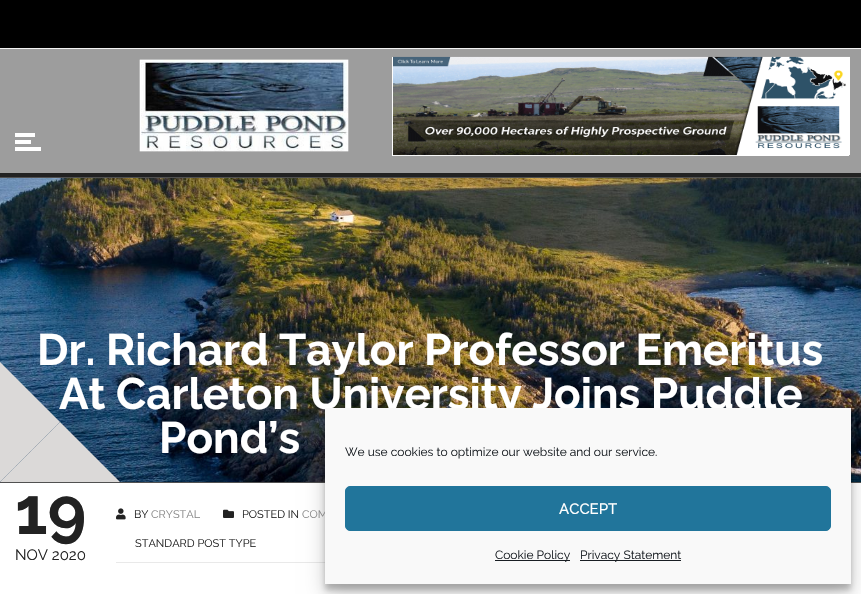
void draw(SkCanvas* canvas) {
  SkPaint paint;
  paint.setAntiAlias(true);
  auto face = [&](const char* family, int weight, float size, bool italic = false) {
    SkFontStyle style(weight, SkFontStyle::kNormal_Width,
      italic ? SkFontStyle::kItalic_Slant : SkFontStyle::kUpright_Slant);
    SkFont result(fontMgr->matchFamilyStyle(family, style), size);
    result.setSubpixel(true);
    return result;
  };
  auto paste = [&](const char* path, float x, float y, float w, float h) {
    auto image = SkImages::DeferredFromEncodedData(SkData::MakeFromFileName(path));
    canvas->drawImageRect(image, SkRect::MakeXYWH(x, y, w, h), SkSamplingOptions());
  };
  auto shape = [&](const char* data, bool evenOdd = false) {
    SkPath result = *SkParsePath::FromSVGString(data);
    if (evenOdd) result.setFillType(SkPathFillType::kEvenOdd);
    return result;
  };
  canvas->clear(0xffffffff);
  {
    const struct { float x, y, w, h; SkColor color; } items[] = {
      {0, 0, 861, 48, 0xff000000},
      {0, 48, 861, 1, 0xfff2f2f2},
      {0, 49, 861, 124, 0xff9d9d9d},
      {392, 57, 457, 99, 0xffffffff},
    };
    for (auto [x, y, w, h, color] : items) {
      paint.setColor(color);
      canvas->drawRect(SkRect::MakeXYWH(x, y, w, h), paint);
    }
  }
  paste("img/1.png", 393, 56, 457, 100);
  {
    const struct { float x, y, w, h; SkColor color; } items[] = {
      {0, 173, 861, 4, 0xff222222},
      {15, 147, 26, 4, 0xffffffff},
      {15, 140, 16, 4, 0xffffffff},
      {15, 133, 20, 4, 0xffffffff},
    };
    for (auto [x, y, w, h, color] : items) {
      paint.setColor(color);
      canvas->drawRect(SkRect::MakeXYWH(x, y, w, h), paint);
    }
  }
  paste("img/2.png", 139, 59, 210, 93);
  paste("img/3.png", 0, 178, 861, 304);
  paint.setColor(0xff515151);
  canvas->drawRect(SkRect::MakeXYWH(0, 177, 861, 1), paint);
  canvas->drawRect(SkRect::MakeXYWH(0, 482, 861, 1), paint);
  paint.setColor(0xffdbd9d8);
  canvas->drawPath(shape("M120 482H0L60 422Z"), paint);
  paint.setColor(0xffe9e9e9);
  canvas->drawRect(SkRect::MakeXYWH(116, 562, 209, 1), paint);
  paste("img/4.png", 116, 508, 10, 12);
  paste("img/5.png", 223, 509, 11, 9);
  paint.setColor(0x3b000000);
  paint.setMaskFilter(SkMaskFilter::MakeBlur(kNormal_SkBlurStyle, 3));
  canvas->drawRect(SkRect::MakeXYWH(325, 414, 526, 176), paint);
  paint.setMaskFilter(nullptr);
  paint.setColor(0x30000000);
  paint.setMaskFilter(SkMaskFilter::MakeBlur(kNormal_SkBlurStyle, 10));
  canvas->drawRect(SkRect::MakeXYWH(325, 418, 526, 176), paint);
  paint.setMaskFilter(nullptr);
  auto f0 = face("Raleway", 700, 44);
  paint.setColor(0xffffffff);
  {
    const struct { const char* s; float x, y; } items[] = {
      {"Dr. Richard Taylor Professor Emeritus", 37, 365},
      {"At Carleton University Joins Puddle", 59, 409},
      {"Pond’s", 159, 453},
    };
    for (auto [s, x, y] : items) {
      canvas->drawString(s, x, y, f0, paint);
    }
  }
  paint.setColor(0xffdbd9d8);
  canvas->drawPath(shape("M0 482V362L60 422Z"), paint);
  auto f1 = face("Raleway", 700, 66);
  paint.setColor(0xff222222);
  canvas->drawString("19", 15, 534, f1, paint);
  auto f2 = face("Raleway", 400, 15);
  canvas->drawString("NOV 2020", 15, 560, f2, paint);
  auto f3 = face("Raleway", 400, 11);
  canvas->drawString("BY", 134, 518, f3, paint);
  paint.setColor(0xff888888);
  canvas->drawString("CRYSTAL", 151, 518, f3, paint);
  paint.setColor(0xff222222);
  canvas->drawString("POSTED IN", 242, 518, f3, paint);
  paint.setColor(0xff888888);
  canvas->drawString("COM", 302, 518, f3, paint);
  paint.setColor(0xff222222);
  canvas->drawString("STANDARD POST TYPE", 135, 547, f3, paint);
  paint.setColor(0xfff9f9f9);
  canvas->drawRect(SkRect::MakeXYWH(325, 408, 526, 176), paint);
  auto f4 = face("Raleway", 400, 12);
  paint.setColor(0xff191e23);
  canvas->drawString("We use cookies to optimize our website and our service.", 345, 456, f4, paint);
  paint.setColor(0xff21759b);
  canvas->drawRoundRect(SkRect::MakeXYWH(345.5f, 486.5f, 485, 44), 4.5f, 4.5f, paint);
  paint.setStroke(true);
  paint.setStrokeWidth(1);
  canvas->drawRoundRect(SkRect::MakeXYWH(345.5f, 486.5f, 485, 44), 4.5f, 4.5f, paint);
  auto f5 = face("Raleway", 500, 15);
  paint.setStroke(false);
  paint.setColor(0xffffffff);
  canvas->drawString("ACCEPT", 559, 514, f5, paint);
  paint.setColor(0xff191e23);
  canvas->drawRect(SkRect::MakeXYWH(495, 560, 75, 1), paint);
  canvas->drawString("Cookie Policy", 495, 559, f4, paint);
  canvas->drawRect(SkRect::MakeXYWH(580, 560, 101, 1), paint);
  canvas->drawString("Privacy Statement", 580, 559, f4, paint);
}
